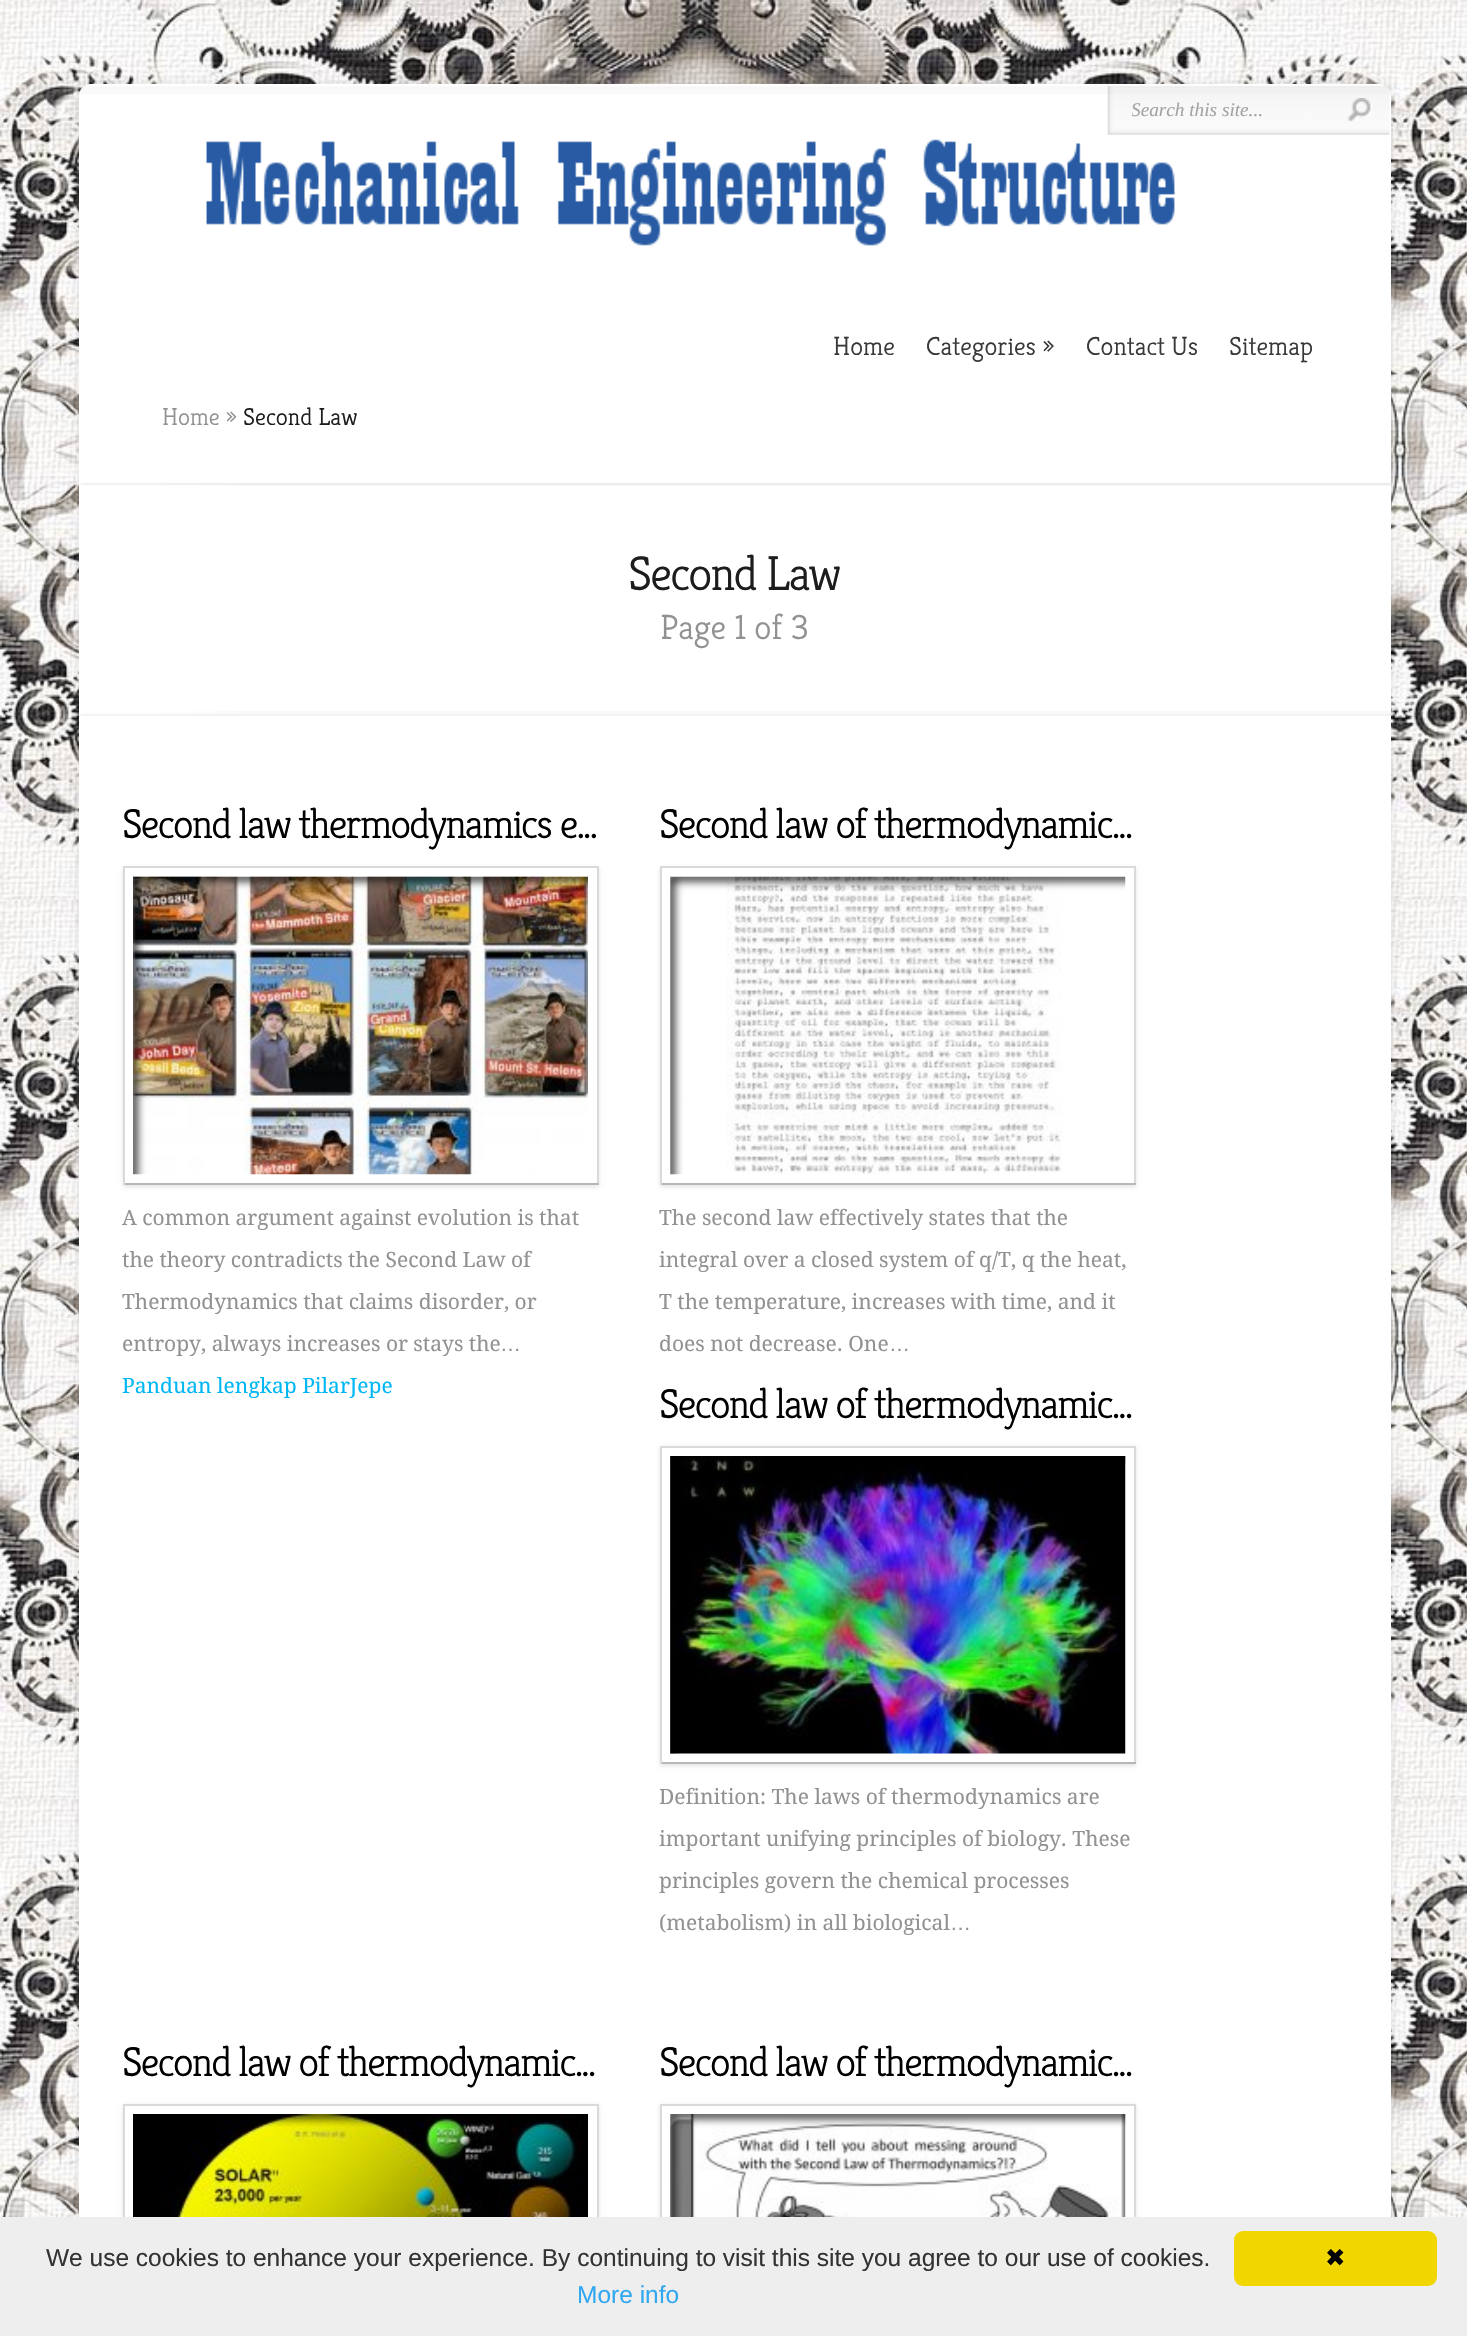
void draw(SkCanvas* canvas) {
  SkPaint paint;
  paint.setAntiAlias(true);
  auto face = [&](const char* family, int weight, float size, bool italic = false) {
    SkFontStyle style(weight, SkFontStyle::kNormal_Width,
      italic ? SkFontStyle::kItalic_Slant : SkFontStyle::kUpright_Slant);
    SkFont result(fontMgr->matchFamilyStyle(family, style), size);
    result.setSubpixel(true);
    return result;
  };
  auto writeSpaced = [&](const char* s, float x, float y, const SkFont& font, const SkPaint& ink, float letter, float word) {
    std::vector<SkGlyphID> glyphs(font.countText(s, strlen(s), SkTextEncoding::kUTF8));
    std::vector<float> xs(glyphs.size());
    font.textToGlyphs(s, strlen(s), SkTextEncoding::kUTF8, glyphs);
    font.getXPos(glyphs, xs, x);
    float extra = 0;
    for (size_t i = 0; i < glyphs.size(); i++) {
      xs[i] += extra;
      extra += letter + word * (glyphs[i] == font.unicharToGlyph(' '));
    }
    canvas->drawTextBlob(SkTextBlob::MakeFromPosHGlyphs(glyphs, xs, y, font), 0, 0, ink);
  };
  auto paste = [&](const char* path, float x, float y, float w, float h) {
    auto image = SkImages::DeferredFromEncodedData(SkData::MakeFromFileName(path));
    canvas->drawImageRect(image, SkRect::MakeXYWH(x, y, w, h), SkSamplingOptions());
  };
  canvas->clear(0xffffffff);
  paste("img/1.png", 0, 0, 1467, 2217);
  paint.setColor(0x1a000000);
  paint.setMaskFilter(SkMaskFilter::MakeBlur(kNormal_SkBlurStyle, 5));
  canvas->drawRoundRect(SkRect::MakeXYWH(79, 84, 1312, 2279), 12, 12, paint);
  paint.setMaskFilter(nullptr);
  paint.setColor(0xffffffff);
  canvas->drawRoundRect(SkRect::MakeXYWH(79, 84, 1312, 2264), 12, 12, paint);
  paste("img/2.png", 80, 86, 1310, 8);
  paste("img/3.png", 1107, 85, 283, 50);
  paste("img/4.png", 1347, 98, 25, 24);
  paste("img/5.png", 206, 139, 971, 107);
  paste("img/6.png", 80, 483, 1312, 3);
  paste("img/7.png", 80, 711, 1312, 5);
  paint.setColor(0x1a000000);
  paint.setMaskFilter(SkMaskFilter::MakeBlur(kNormal_SkBlurStyle, 2));
  canvas->drawRect(SkRect::MakeXYWH(123, 868, 476, 319), paint);
  paint.setMaskFilter(nullptr);
  {
    const struct { float x, y, w, h; SkColor color; } items[] = {
      {125, 868, 472, 315, 0xffffffff},
      {123, 866, 476, 2, 0xffdadada},
      {597, 866, 2, 319, 0xffdadada},
      {123, 1183, 476, 2, 0xffb7b7b7},
      {123, 866, 2, 319, 0xffdadada},
    };
    for (auto [x, y, w, h, color] : items) {
      paint.setColor(color);
      canvas->drawRect(SkRect::MakeXYWH(x, y, w, h), paint);
    }
  }
  paste("img/8.png", 133, 876, 455, 299);
  paste("img/9.png", 133, 876, 455, 299);
  paint.setColor(0x1a000000);
  paint.setMaskFilter(SkMaskFilter::MakeBlur(kNormal_SkBlurStyle, 2));
  canvas->drawRect(SkRect::MakeXYWH(660, 868, 476, 319), paint);
  paint.setMaskFilter(nullptr);
  {
    const struct { float x, y, w, h; SkColor color; } items[] = {
      {662, 868, 472, 315, 0xffffffff},
      {660, 866, 476, 2, 0xffdadada},
      {1134, 866, 2, 319, 0xffdadada},
      {660, 1183, 476, 2, 0xffb7b7b7},
      {660, 866, 2, 319, 0xffdadada},
    };
    for (auto [x, y, w, h, color] : items) {
      paint.setColor(color);
      canvas->drawRect(SkRect::MakeXYWH(x, y, w, h), paint);
    }
  }
  paste("img/11.png", 726, 876, 336, 299);
  paste("img/10.png", 670, 876, 456, 299);
  paint.setColor(0x1a000000);
  paint.setMaskFilter(SkMaskFilter::MakeBlur(kNormal_SkBlurStyle, 2));
  canvas->drawRect(SkRect::MakeXYWH(660, 1447, 476, 319), paint);
  paint.setMaskFilter(nullptr);
  {
    const struct { float x, y, w, h; SkColor color; } items[] = {
      {662, 1448, 472, 314, 0xffffffff},
      {660, 1446, 476, 2, 0xffdadada},
      {1134, 1446, 2, 318, 0xffdadada},
      {660, 1762, 476, 2, 0xffb7b7b7},
      {660, 1446, 2, 318, 0xffdadada},
    };
    for (auto [x, y, w, h, color] : items) {
      paint.setColor(color);
      canvas->drawRect(SkRect::MakeXYWH(x, y, w, h), paint);
    }
  }
  paste("img/12.png", 670, 1456, 456, 298);
  paste("img/13.png", 670, 1456, 456, 298);
  paint.setColor(0x1a000000);
  paint.setMaskFilter(SkMaskFilter::MakeBlur(kNormal_SkBlurStyle, 2));
  canvas->drawRect(SkRect::MakeXYWH(123, 2105, 476, 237), paint);
  paint.setMaskFilter(nullptr);
  {
    const struct { float x, y, w, h; SkColor color; } items[] = {
      {125, 2106, 472, 111, 0xffffffff},
      {123, 2104, 476, 2, 0xffdadada},
      {597, 2104, 2, 113, 0xffdadada},
      {123, 2104, 2, 113, 0xffdadada},
    };
    for (auto [x, y, w, h, color] : items) {
      paint.setColor(color);
      canvas->drawRect(SkRect::MakeXYWH(x, y, w, h), paint);
    }
  }
  paste("img/14.png", 133, 2114, 455, 103);
  paste("img/15.png", 217, 2114, 364, 13);
  paint.setColor(0x1a000000);
  paint.setMaskFilter(SkMaskFilter::MakeBlur(kNormal_SkBlurStyle, 2));
  canvas->drawRect(SkRect::MakeXYWH(660, 2105, 476, 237), paint);
  paint.setMaskFilter(nullptr);
  {
    const struct { float x, y, w, h; SkColor color; } items[] = {
      {662, 2106, 472, 111, 0xffffffff},
      {660, 2104, 476, 2, 0xffdadada},
      {1134, 2104, 2, 113, 0xffdadada},
      {660, 2104, 2, 113, 0xffdadada},
    };
    for (auto [x, y, w, h, color] : items) {
      paint.setColor(color);
      canvas->drawRect(SkRect::MakeXYWH(x, y, w, h), paint);
    }
  }
  paste("img/16.png", 670, 2114, 456, 103);
  paste("img/17.png", 670, 2114, 456, 103);
  paint.setColor(0xffeeeeee);
  canvas->drawRect(SkRect::MakeXYWH(0, 2217, 1467, 119), paint);
  paint.setColor(0xfff1d600);
  canvas->drawRoundRect(SkRect::MakeXYWH(1234, 2231, 203, 55), 9, 9, paint);
  canvas->save();
  canvas->clipRect(SkRect::MakeXYWH(1132, 98, 200, 21));
  auto f0 = face("Liberation Serif", 400, 19.25f, true);
  paint.setColor(0xffa3a3a3);
  canvas->drawString("Search this site...", 1131, 116, f0, paint);
  canvas->restore();
  auto f1 = face("Kreon", 300, 26.25f);
  paint.setColor(0xff393939);
  {
    const struct { const char* s; float x, y; } items[] = {
      {"Home", 833, 355},
      {"Categories »", 926, 355},
      {"Contact Us", 1086, 355},
      {"Sitemap", 1229, 355},
    };
    for (auto [s, x, y] : items) {
      canvas->drawString(s, x, y, f1, paint);
    }
  }
  auto f2 = face("Kreon", 300, 24.5f);
  paint.setColor(0xff929292);
  canvas->drawString("Home »", 162, 425, f2, paint);
  paint.setColor(0xff1d1d1d);
  canvas->drawString("Second Law", 243, 425, f2, paint);
  auto f3 = face("Kreon", 300, 49);
  writeSpaced("Second Law", 628, 590, f3, paint, -1.75f, 0);
  auto f4 = face("Kreon", 300, 35);
  paint.setColor(0xff929292);
  canvas->drawString("Page 1 of 3", 660, 639, f4, paint);
  auto f5 = face("Kreon", 300, 42);
  paint.setColor(0xff000000);
  writeSpaced("Second law thermodynamics e…", 122, 838, f5, paint, -1.75f, 0);
  auto f6 = face("Droid Serif", 400, 21);
  paint.setColor(0xff929292);
  {
    const struct { const char* s; float x, y; } items[] = {
      {"A common argument against evolution is that", 122, 1225},
      {"the theory contradicts the Second Law of", 122, 1267},
      {"Thermodynamics that claims disorder, or", 122, 1309},
      {"entropy, always increases or stays the", 122, 1351},
    };
    for (auto [s, x, y] : items) {
      canvas->drawString(s, x, y, f6, paint);
    }
  }
  auto f7 = face("Liberation Sans", 400, 21);
  canvas->drawString("…", 500, 1351, f7, paint);
  paint.setColor(0xff00b7f3);
  canvas->drawString("Panduan lengkap PilarJepe", 122, 1393, f6, paint);
  paint.setColor(0xff000000);
  writeSpaced("Second law of thermodynamic…", 659, 838, f5, paint, -1.75f, 0);
  paint.setColor(0xff929292);
  {
    const struct { const char* s; float x, y; } items[] = {
      {"The second law effectively states that the", 659, 1225},
      {"integral over a closed system of q/T, q the heat,", 659, 1267},
      {"T the temperature, increases with time, and it", 659, 1309},
      {"does not decrease. One", 659, 1351},
    };
    for (auto [s, x, y] : items) {
      canvas->drawString(s, x, y, f6, paint);
    }
  }
  canvas->drawString("…", 889, 1351, f7, paint);
  paint.setColor(0xff000000);
  writeSpaced("Second law of thermodynamic…", 659, 1418, f5, paint, -1.75f, 0);
  paint.setColor(0xff929292);
  {
    const struct { const char* s; float x, y; } items[] = {
      {"Definition: The laws of thermodynamics are", 659, 1804},
      {"important unifying principles of biology. These", 659, 1846},
      {"principles govern the chemical processes", 659, 1888},
      {"(metabolism) in all biological", 659, 1930},
    };
    for (auto [s, x, y] : items) {
      canvas->drawString(s, x, y, f6, paint);
    }
  }
  canvas->drawString("…", 950, 1930, f7, paint);
  paint.setColor(0xff000000);
  writeSpaced("Second law of thermodynamic…", 122, 2076, f5, paint, -1.75f, 0);
  writeSpaced("Second law of thermodynamic…", 659, 2076, f5, paint, -1.75f, 0);
  auto f8 = face("Liberation Sans", 400, 24.5f);
  paint.setColor(0xff333333);
  canvas->drawString("We use cookies to enhance your experience. By continuing to visit this site you agree to our use of cookies.", 46, 2266, f8, paint);
  paint.setColor(0xff31a8f0);
  canvas->drawString("More info", 577, 2303, f8, paint);
  auto f9 = face("DejaVu Sans", 400, 24.5f);
  paint.setColor(0xff000000);
  canvas->drawString("✖", 1325, 2266, f9, paint);
}
